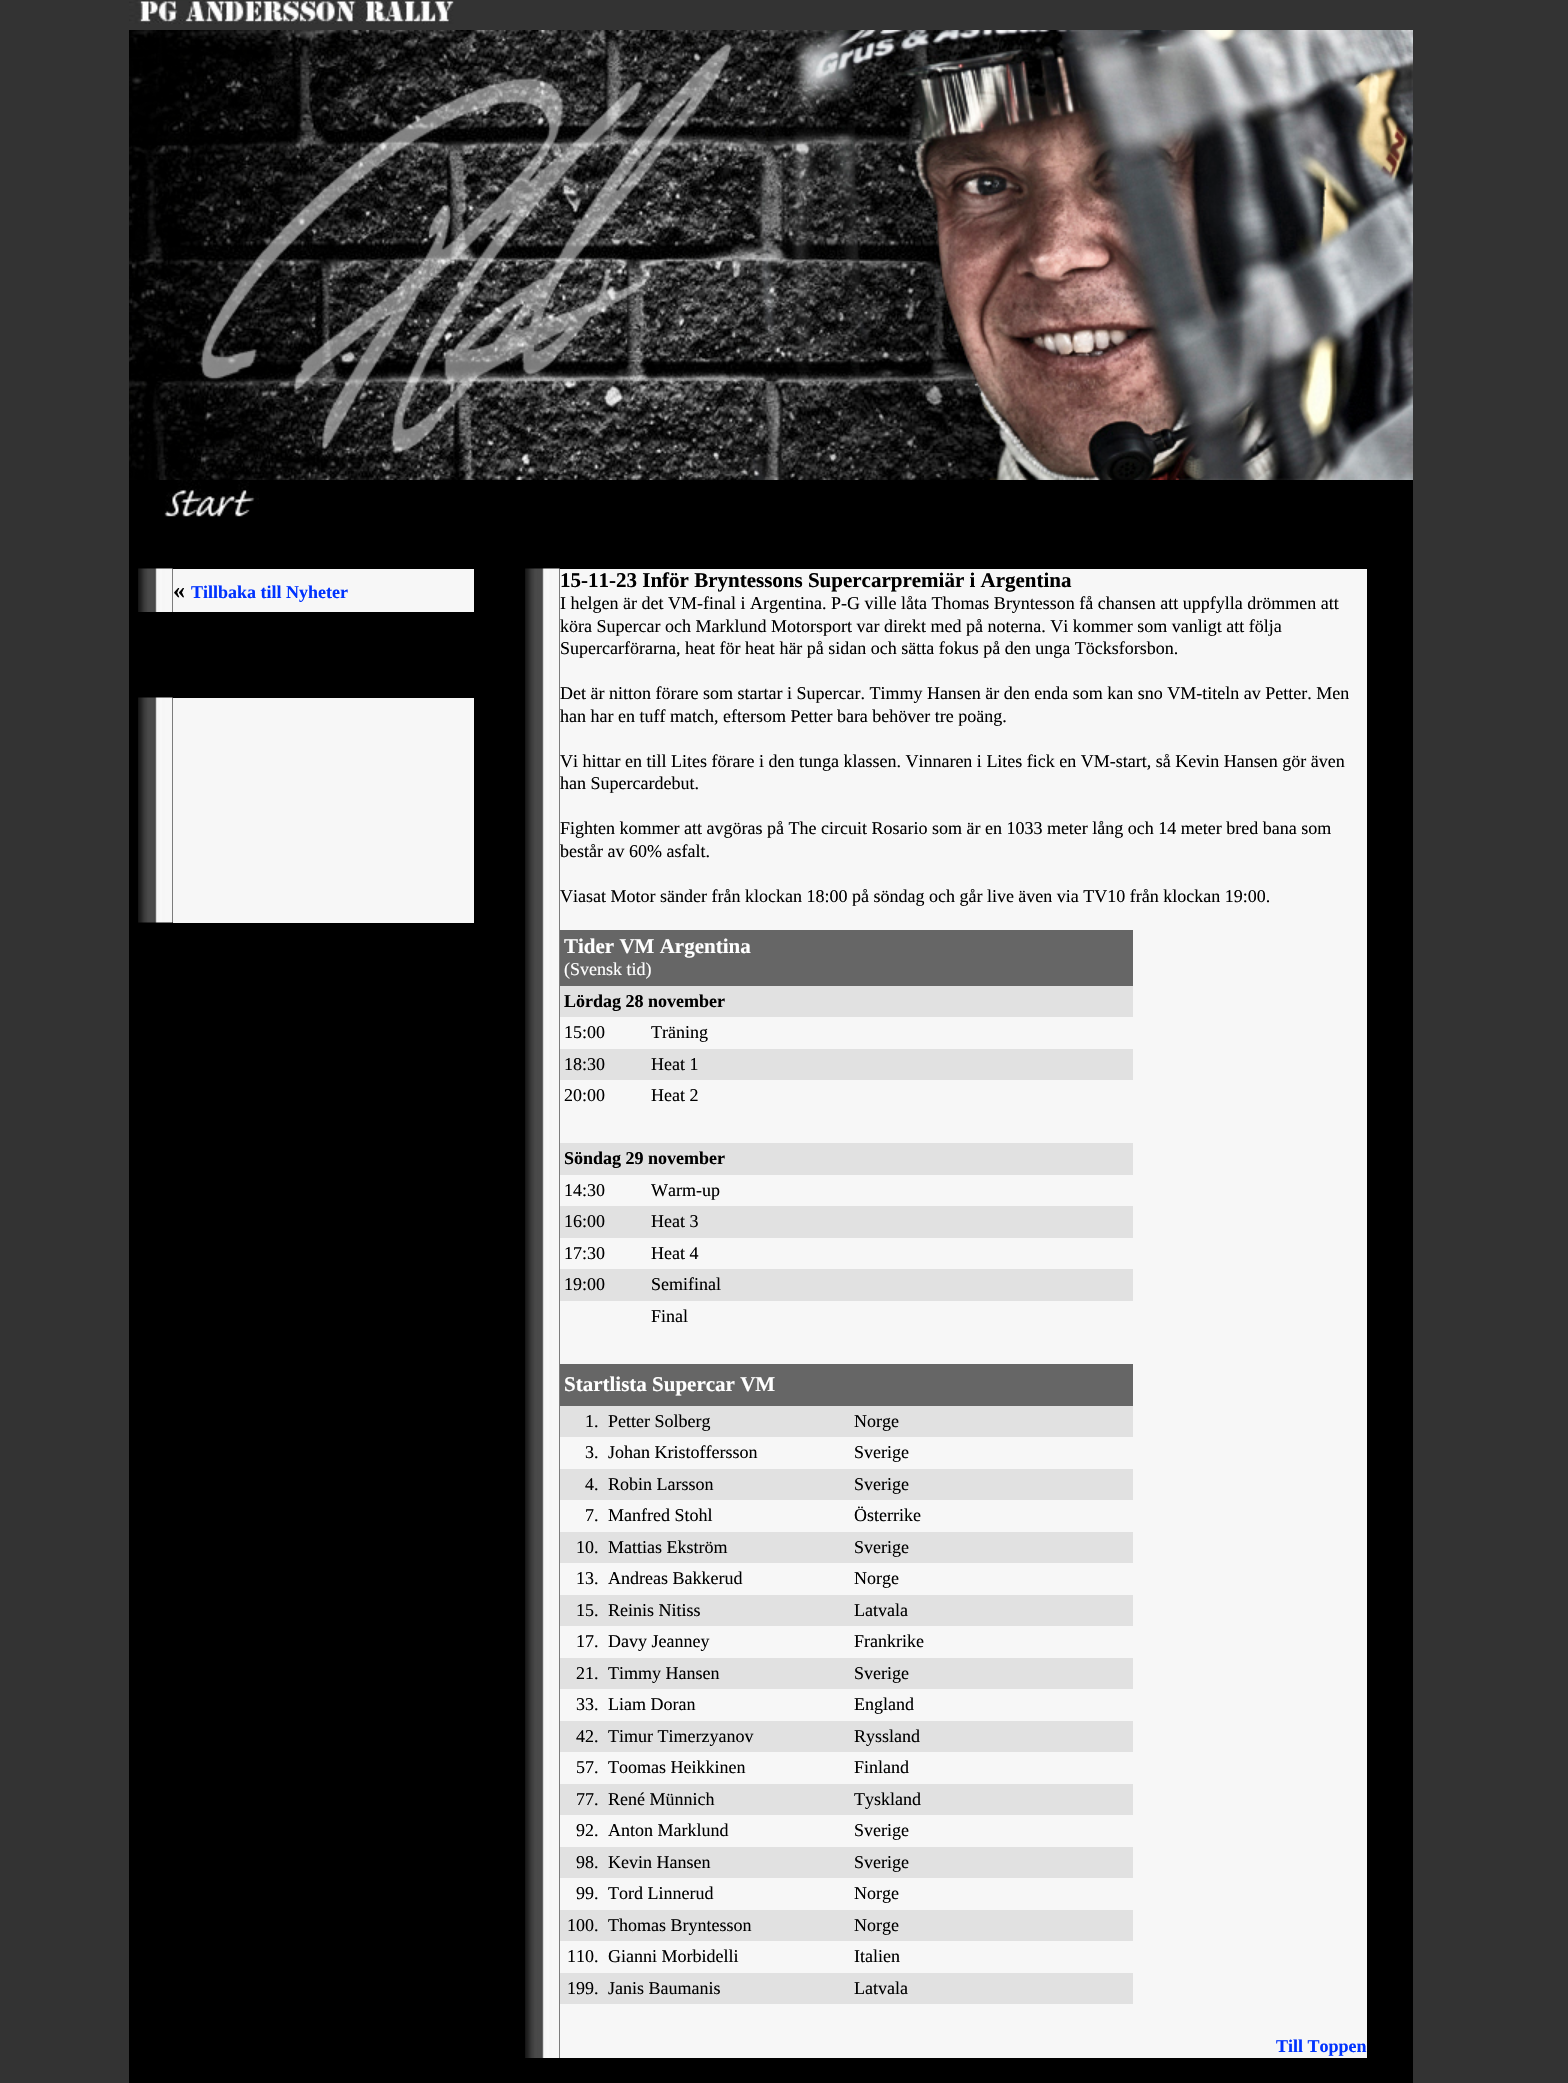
void draw(SkCanvas* canvas) {
  SkPaint paint;
  paint.setAntiAlias(true);
  auto face = [&](const char* family, int weight, float size, bool italic = false) {
    SkFontStyle style(weight, SkFontStyle::kNormal_Width,
      italic ? SkFontStyle::kItalic_Slant : SkFontStyle::kUpright_Slant);
    SkFont result(fontMgr->matchFamilyStyle(family, style), size);
    result.setSubpixel(true);
    return result;
  };
  auto paste = [&](const char* path, float x, float y, float w, float h) {
    auto image = SkImages::DeferredFromEncodedData(SkData::MakeFromFileName(path));
    canvas->drawImageRect(image, SkRect::MakeXYWH(x, y, w, h), SkSamplingOptions());
  };
  canvas->clear(0xff333333);
  paste("img/1.png", 129, 0, 325, 24);
  paste("img/2.png", 129, 30, 1284, 450);
  paint.setColor(0xff000000);
  canvas->drawRect(SkRect::MakeXYWH(129, 480, 1284, 45), paint);
  paste("img/3.png", 164, 480, 95, 37);
  canvas->drawRect(SkRect::MakeXYWH(129, 525, 1284, 1558), paint);
  paste("img/4.png", 138, 568, 35, 44);
  paint.setColor(0xfff7f7f7);
  canvas->drawRect(SkRect::MakeXYWH(173, 569, 301, 43), paint);
  paste("img/5.png", 138, 697, 35, 226);
  canvas->drawRect(SkRect::MakeXYWH(173, 698, 301, 225), paint);
  paste("img/6.png", 525, 568, 35, 1490);
  {
    const struct { float x, y, w, h; SkColor color; } items[] = {
      {560, 569, 807, 1489, 0xfff7f7f7},
      {560, 930, 573, 56, 0xff666666},
      {560, 986, 573, 31, 0xffe1e1e1},
      {560, 1049, 573, 31, 0xffe1e1e1},
      {560, 1143, 573, 32, 0xffe1e1e1},
      {560, 1206, 573, 32, 0xffe1e1e1},
      {560, 1269, 573, 32, 0xffe1e1e1},
      {560, 1364, 573, 42, 0xff666666},
      {560, 1406, 573, 31, 0xffe1e1e1},
      {560, 1469, 573, 31, 0xffe1e1e1},
      {560, 1532, 573, 31, 0xffe1e1e1},
      {560, 1595, 573, 31, 0xffe1e1e1},
      {560, 1658, 573, 31, 0xffe1e1e1},
      {560, 1721, 573, 31, 0xffe1e1e1},
      {560, 1784, 573, 31, 0xffe1e1e1},
      {560, 1847, 573, 31, 0xffe1e1e1},
      {560, 1910, 573, 31, 0xffe1e1e1},
      {560, 1973, 573, 31, 0xffe1e1e1},
    };
    for (auto [x, y, w, h, color] : items) {
      paint.setColor(color);
      canvas->drawRect(SkRect::MakeXYWH(x, y, w, h), paint);
    }
  }
  auto f0 = face("Liberation Serif", 700, 24);
  paint.setColor(0xff000000);
  canvas->drawString("«", 173, 598, f0, paint);
  auto f1 = face("Liberation Serif", 700, 18);
  paint.setColor(0xff0033ff);
  canvas->drawString("Tillbaka till Nyheter", 191, 598, f1, paint);
  auto f2 = face("Liberation Serif", 700, 21);
  paint.setColor(0xff000000);
  canvas->drawString("15-11-23 Inför Bryntessons Supercarpremiär i Argentina", 560, 587, f2, paint);
  auto f3 = face("Liberation Serif", 400, 18);
  {
    const struct { const char* s; float x, y; } items[] = {
      {"I helgen är det VM-final i Argentina. P-G ville låta Thomas Bryntesson få chansen att uppfylla drömmen att", 560, 609},
      {"köra Supercar och Marklund Motorsport var direkt med på noterna. Vi kommer som vanligt att följa", 560, 632},
      {"Supercarförarna, heat för heat här på sidan och sätta fokus på den unga Töcksforsbon.", 560, 654},
      {"Det är nitton förare som startar i Supercar. Timmy Hansen är den enda som kan sno VM-titeln av Petter. Men", 560, 699},
      {"han har en tuff match, eftersom Petter bara behöver tre poäng.", 560, 722},
      {"Vi hittar en till Lites förare i den tunga klassen. Vinnaren i Lites fick en VM-start, så Kevin Hansen gör även", 560, 767},
      {"han Supercardebut.", 560, 789},
      {"Fighten kommer att avgöras på The circuit Rosario som är en 1033 meter lång och 14 meter bred bana som", 560, 834},
      {"består av 60% asfalt.", 560, 857},
      {"Viasat Motor sänder från klockan 18:00 på söndag och går live även via TV10 från klockan 19:00.", 560, 902},
    };
    for (auto [s, x, y] : items) {
      canvas->drawString(s, x, y, f3, paint);
    }
  }
  paint.setColor(0xffffffff);
  canvas->drawString("Tider VM Argentina", 564, 953, f2, paint);
  canvas->drawString("(Svensk tid)", 564, 975, f3, paint);
  paint.setColor(0xff000000);
  canvas->drawString("Lördag 28 november", 564, 1007, f1, paint);
  {
    const struct { const char* s; float x, y; } items[] = {
      {"15:00", 564, 1038},
      {"Träning", 651, 1038},
      {"18:30", 564, 1070},
      {"Heat 1", 651, 1070},
      {"20:00", 564, 1101},
      {"Heat 2", 651, 1101},
    };
    for (auto [s, x, y] : items) {
      canvas->drawString(s, x, y, f3, paint);
    }
  }
  canvas->drawString("Söndag 29 november", 564, 1164, f1, paint);
  {
    const struct { const char* s; float x, y; } items[] = {
      {"14:30", 564, 1196},
      {"Warm-up", 651, 1196},
      {"16:00", 564, 1227},
      {"Heat 3", 651, 1227},
      {"17:30", 564, 1259},
      {"Heat 4", 651, 1259},
      {"19:00", 564, 1290},
      {"Semifinal", 651, 1290},
      {"Final", 651, 1322},
    };
    for (auto [s, x, y] : items) {
      canvas->drawString(s, x, y, f3, paint);
    }
  }
  paint.setColor(0xffffffff);
  canvas->drawString("Startlista Supercar VM", 564, 1391, f2, paint);
  paint.setColor(0xff000000);
  {
    const struct { const char* s; float x, y; } items[] = {
      {"1.", 585, 1427},
      {"Petter Solberg", 608, 1427},
      {"Norge", 854, 1427},
      {"3.", 585, 1458},
      {"Johan Kristoffersson", 608, 1458},
      {"Sverige", 854, 1458},
      {"4.", 585, 1490},
      {"Robin Larsson", 608, 1490},
      {"Sverige", 854, 1490},
      {"7.", 585, 1521},
      {"Manfred Stohl", 608, 1521},
      {"Österrike", 854, 1521},
      {"10.", 576, 1553},
      {"Mattias Ekström", 608, 1553},
      {"Sverige", 854, 1553},
      {"13.", 576, 1584},
      {"Andreas Bakkerud", 608, 1584},
      {"Norge", 854, 1584},
      {"15.", 576, 1616},
      {"Reinis Nitiss", 608, 1616},
      {"Latvala", 854, 1616},
      {"17.", 576, 1647},
      {"Davy Jeanney", 608, 1647},
      {"Frankrike", 854, 1647},
      {"21.", 576, 1679},
      {"Timmy Hansen", 608, 1679},
      {"Sverige", 854, 1679},
      {"33.", 576, 1710},
      {"Liam Doran", 608, 1710},
      {"England", 854, 1710},
      {"42.", 576, 1742},
      {"Timur Timerzyanov", 608, 1742},
      {"Ryssland", 854, 1742},
      {"57.", 576, 1773},
      {"Toomas Heikkinen", 608, 1773},
      {"Finland", 854, 1773},
      {"77.", 576, 1805},
      {"René Münnich", 608, 1805},
      {"Tyskland", 854, 1805},
      {"92.", 576, 1836},
      {"Anton Marklund", 608, 1836},
      {"Sverige", 854, 1836},
      {"98.", 576, 1868},
      {"Kevin Hansen", 608, 1868},
      {"Sverige", 854, 1868},
      {"99.", 576, 1899},
      {"Tord Linnerud", 608, 1899},
      {"Norge", 854, 1899},
      {"100.", 567, 1931},
      {"Thomas Bryntesson", 608, 1931},
      {"Norge", 854, 1931},
      {"110.", 567, 1962},
      {"Gianni Morbidelli", 608, 1962},
      {"Italien", 854, 1962},
      {"199.", 567, 1994},
      {"Janis Baumanis", 608, 1994},
      {"Latvala", 854, 1994},
    };
    for (auto [s, x, y] : items) {
      canvas->drawString(s, x, y, f3, paint);
    }
  }
  paint.setColor(0xff0033ff);
  canvas->drawString("Till Toppen", 1276, 2052, f1, paint);
}
